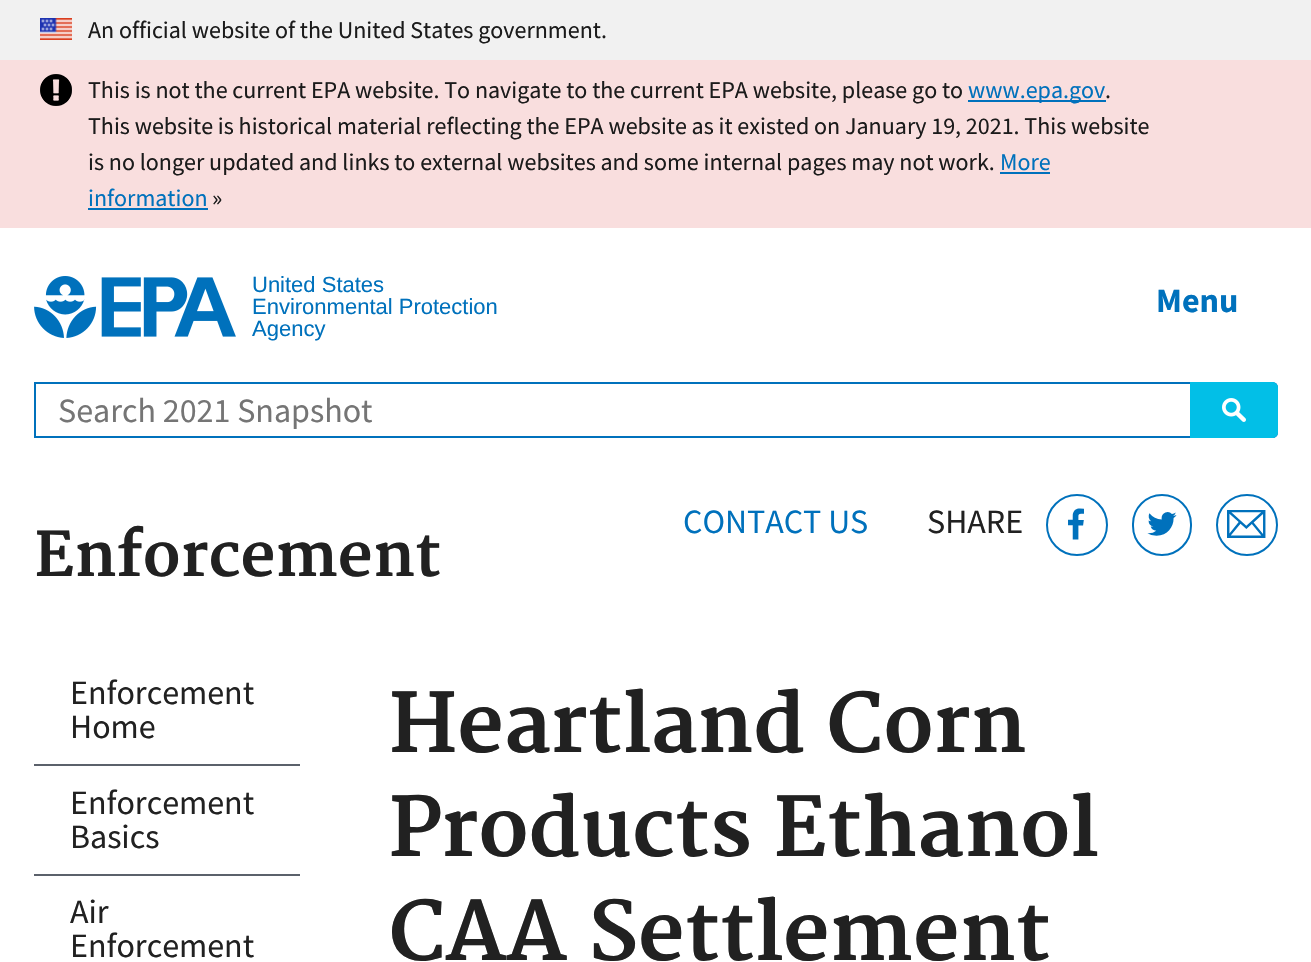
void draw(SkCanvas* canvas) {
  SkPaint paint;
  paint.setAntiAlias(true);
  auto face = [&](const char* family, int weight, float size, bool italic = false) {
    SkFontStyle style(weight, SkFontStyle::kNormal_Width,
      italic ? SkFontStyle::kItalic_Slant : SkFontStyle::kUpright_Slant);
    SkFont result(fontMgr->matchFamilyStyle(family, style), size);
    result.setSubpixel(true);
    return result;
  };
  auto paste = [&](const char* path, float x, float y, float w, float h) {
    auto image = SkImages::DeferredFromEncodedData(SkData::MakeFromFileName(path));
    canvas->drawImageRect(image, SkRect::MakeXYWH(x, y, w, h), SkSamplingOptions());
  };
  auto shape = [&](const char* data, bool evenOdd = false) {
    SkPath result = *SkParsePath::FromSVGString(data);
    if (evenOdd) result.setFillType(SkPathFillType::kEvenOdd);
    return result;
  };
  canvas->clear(0xffffffff);
  paint.setColor(0xfff1f1f1);
  canvas->drawRect(SkRect::MakeXYWH(0, 0, 1311, 60), paint);
  paste("img/1.png", 40, 18, 32, 22);
  paint.setColor(0xfff9dede);
  canvas->drawRect(SkRect::MakeXYWH(0, 60, 1311, 168), paint);
  paste("img/2.png", 40, 74, 32, 32);
  {
    const struct { float x, y, w, h; SkColor color; } items[] = {
      {968, 100, 138, 2, 0xff0071bc},
      {1000, 172, 50, 2, 0xff0071bc},
      {88, 208, 120, 2, 0xff0071bc},
    };
    for (auto [x, y, w, h, color] : items) {
      paint.setColor(color);
      canvas->drawRect(SkRect::MakeXYWH(x, y, w, h), paint);
    }
  }
  paste("img/3.png", 34, 276, 202, 62);
  paint.setStroke(true);
  paint.setStrokeWidth(2);
  canvas->drawPath(shape("M35 383H1272C1275 383 1277 385 1277 388V432C1277 435 1275 437 1272 437H35Z"), paint);
  paint.setStroke(false);
  paint.setColor(0xff02bfe7);
  canvas->drawPath(shape("M1190 382H1272C1275.5 382 1278 384.5 1278 388V432C1278 435.5 1275.5 438 1272 438H1190Z"), paint);
  paste("img/4.png", 1222, 398, 24, 24);
  paint.setStroke(true);
  paint.setColor(0xff0071bc);
  canvas->drawCircle(1077, 525, 30, paint);
  paste("img/5.png", 1068, 508, 16, 32);
  canvas->drawRoundRect(SkRect::MakeXYWH(1133, 495, 58, 60), 29, 29, paint);
  paste("img/6.png", 1147, 512, 30, 24);
  canvas->drawCircle(1247, 525, 30, paint);
  paste("img/7.png", 1227, 510, 39, 28);
  paint.setStroke(false);
  paint.setColor(0xff5b616b);
  canvas->drawRect(SkRect::MakeXYWH(34, 764, 266, 2), paint);
  canvas->drawRect(SkRect::MakeXYWH(34, 874, 266, 2), paint);
  auto f0 = face("Source Sans Pro", 400, 24);
  paint.setColor(0xff1b1b1b);
  canvas->drawString("An official website of the United States government.", 88, 38, f0, paint);
  canvas->drawString("This is not the current EPA website. To navigate to the current EPA website, please go to", 88, 98, f0, paint);
  paint.setColor(0xff0071bc);
  canvas->drawString("www.epa.gov", 968, 98, f0, paint);
  paint.setColor(0xff1b1b1b);
  {
    const struct { const char* s; float x, y; } items[] = {
      {".", 1105, 98},
      {"This website is historical material reflecting the EPA website as it existed on January 19, 2021. This website", 88, 134},
      {"is no longer updated and links to external websites and some internal pages may not work.", 88, 170},
    };
    for (auto [s, x, y] : items) {
      canvas->drawString(s, x, y, f0, paint);
    }
  }
  paint.setColor(0xff0071bc);
  canvas->drawString("More", 1000, 170, f0, paint);
  canvas->drawString("information", 88, 206, f0, paint);
  paint.setColor(0xff1b1b1b);
  canvas->drawString("»", 212, 206, f0, paint);
  auto f1 = face("Liberation Sans", 400, 22);
  paint.setColor(0xff0071bc);
  {
    const struct { const char* s; float x, y; } items[] = {
      {"United States", 252, 292},
      {"Environmental Protection", 252, 314},
      {"Agency", 252, 336},
    };
    for (auto [s, x, y] : items) {
      canvas->drawString(s, x, y, f1, paint);
    }
  }
  auto f2 = face("Source Sans Pro", 400, 34);
  paint.setColor(0xff757575);
  canvas->drawString("Search 2021 Snapshot", 58, 422, f2, paint);
  auto f3 = face("Source Sans Pro", 700, 34);
  paint.setColor(0xff0071bc);
  canvas->drawString("Menu", 1156, 312, f3, paint);
  canvas->drawString("CONTACT US", 683, 533, f2, paint);
  paint.setColor(0xff212121);
  canvas->drawString("SHARE", 927, 533, f2, paint);
  auto f4 = face("Merriweather", 700, 60);
  canvas->drawString("Enforcement", 34, 576, f4, paint);
  {
    const struct { const char* s; float x, y; } items[] = {
      {"Enforcement", 70, 704},
      {"Home", 70, 738},
      {"Enforcement", 70, 814},
      {"Basics", 70, 848},
      {"Air", 70, 923},
      {"Enforcement", 70, 957},
    };
    for (auto [s, x, y] : items) {
      canvas->drawString(s, x, y, f2, paint);
    }
  }
  auto f5 = face("Merriweather", 700, 80);
  {
    const struct { const char* s; float x, y; } items[] = {
      {"Heartland Corn", 389, 752},
      {"Products Ethanol", 389, 856},
      {"CAA Settlement", 389, 960},
    };
    for (auto [s, x, y] : items) {
      canvas->drawString(s, x, y, f5, paint);
    }
  }
}
